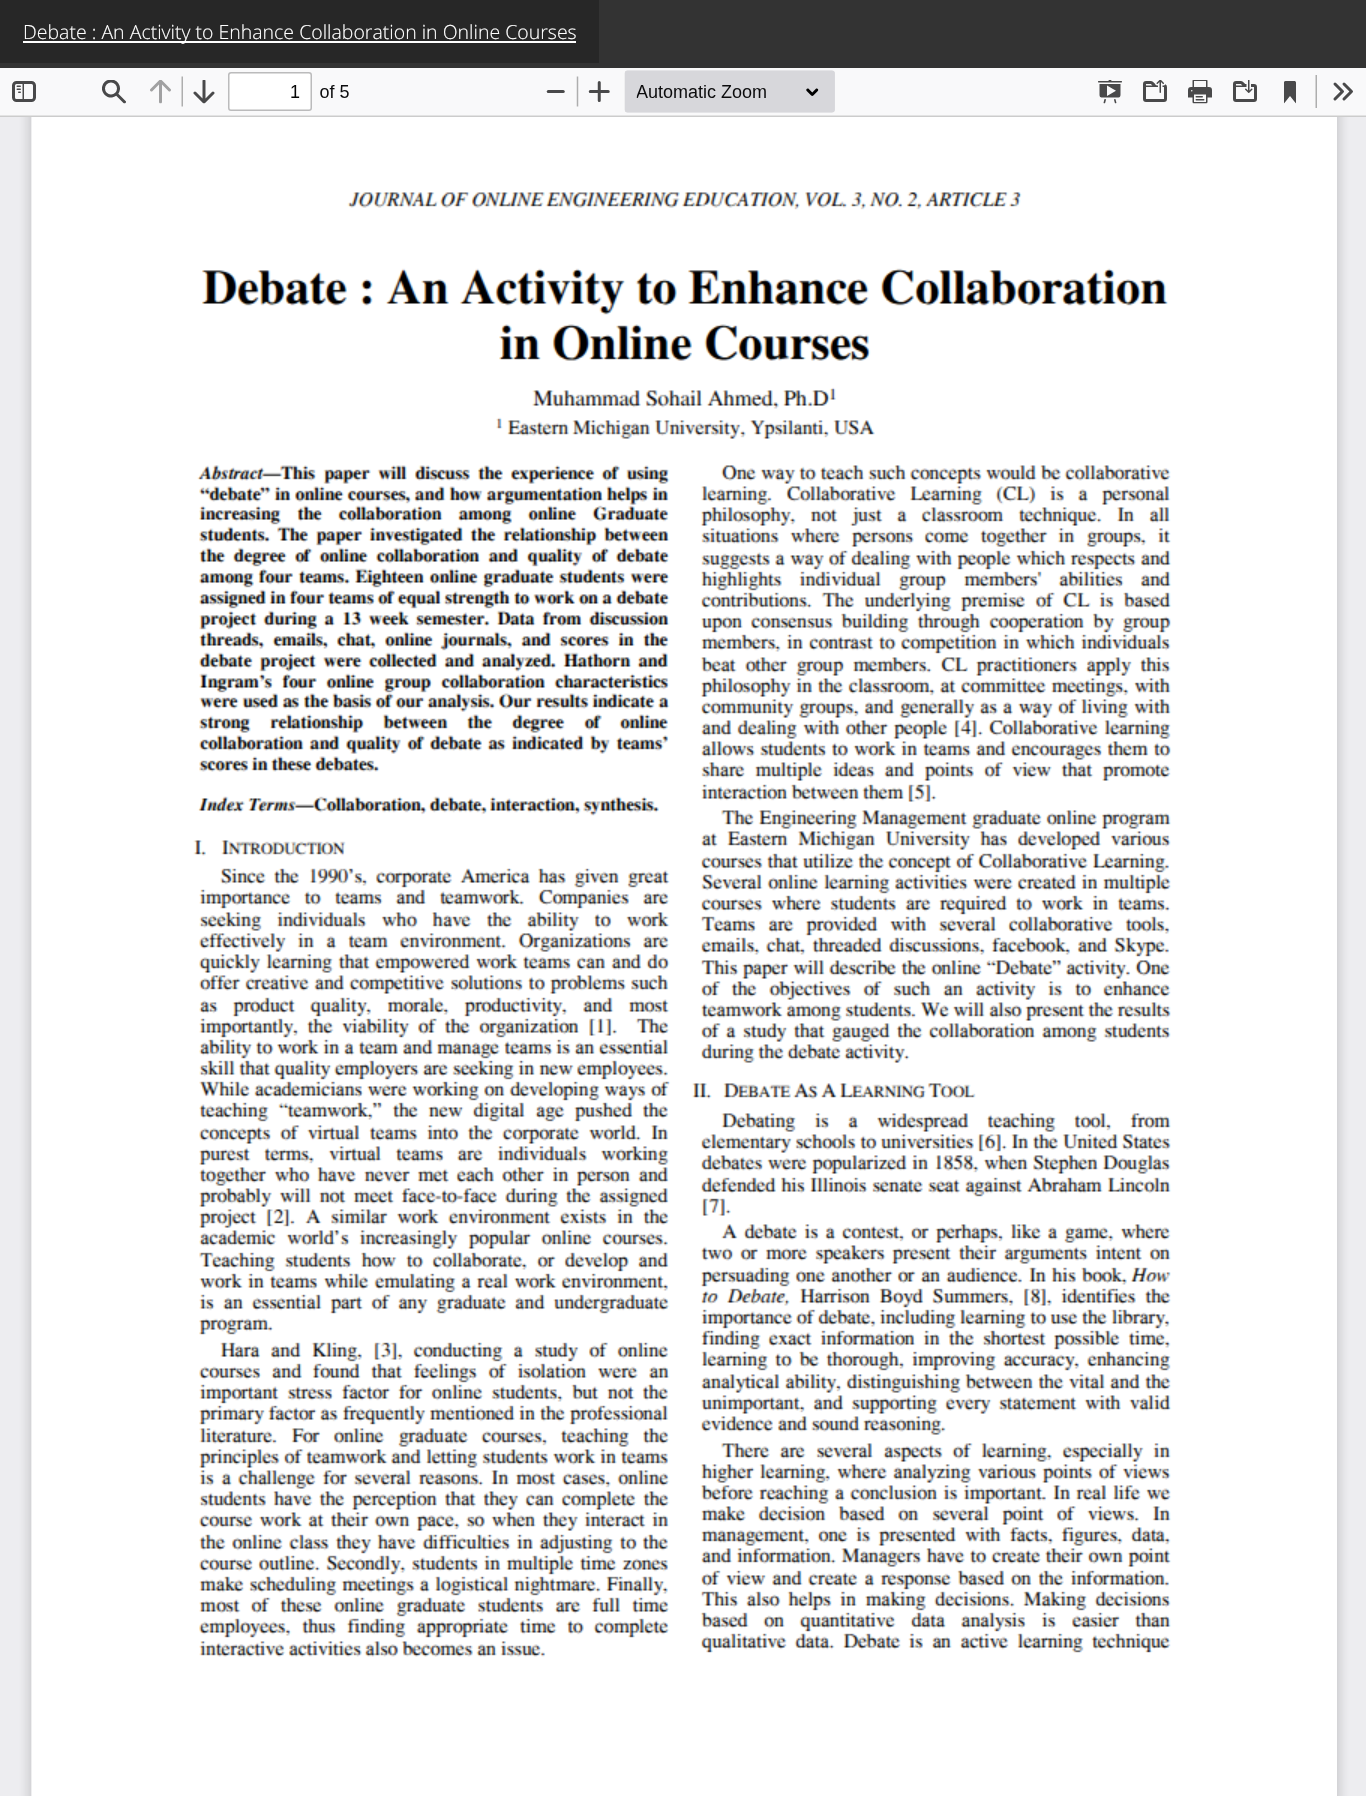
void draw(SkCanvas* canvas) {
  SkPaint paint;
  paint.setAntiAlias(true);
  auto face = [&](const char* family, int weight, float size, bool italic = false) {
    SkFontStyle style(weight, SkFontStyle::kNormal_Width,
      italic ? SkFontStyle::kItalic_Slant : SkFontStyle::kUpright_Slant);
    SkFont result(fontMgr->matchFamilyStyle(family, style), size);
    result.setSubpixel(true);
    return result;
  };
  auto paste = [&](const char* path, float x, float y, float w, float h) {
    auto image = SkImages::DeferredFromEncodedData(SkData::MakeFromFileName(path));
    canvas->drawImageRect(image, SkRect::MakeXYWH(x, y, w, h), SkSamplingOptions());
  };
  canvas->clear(0xffffffff);
  {
    const struct { float x, y, w, h; SkColor color; } items[] = {
      {0, 0, 1366, 68, 0xff333333},
      {0, 0, 599, 63, 0xff272727},
      {23, 41, 553, 2, 0xffffffff},
    };
    for (auto [x, y, w, h, color] : items) {
      paint.setColor(color);
      canvas->drawRect(SkRect::MakeXYWH(x, y, w, h), paint);
    }
  }
  paste("img/1.png", 0, 68, 1366, 1728);
  auto f0 = face("Open Sans", 300, 19.5f);
  canvas->drawString("Debate : An Activity to Enhance Collaboration in Online Courses", 23, 39, f0, paint);
}
